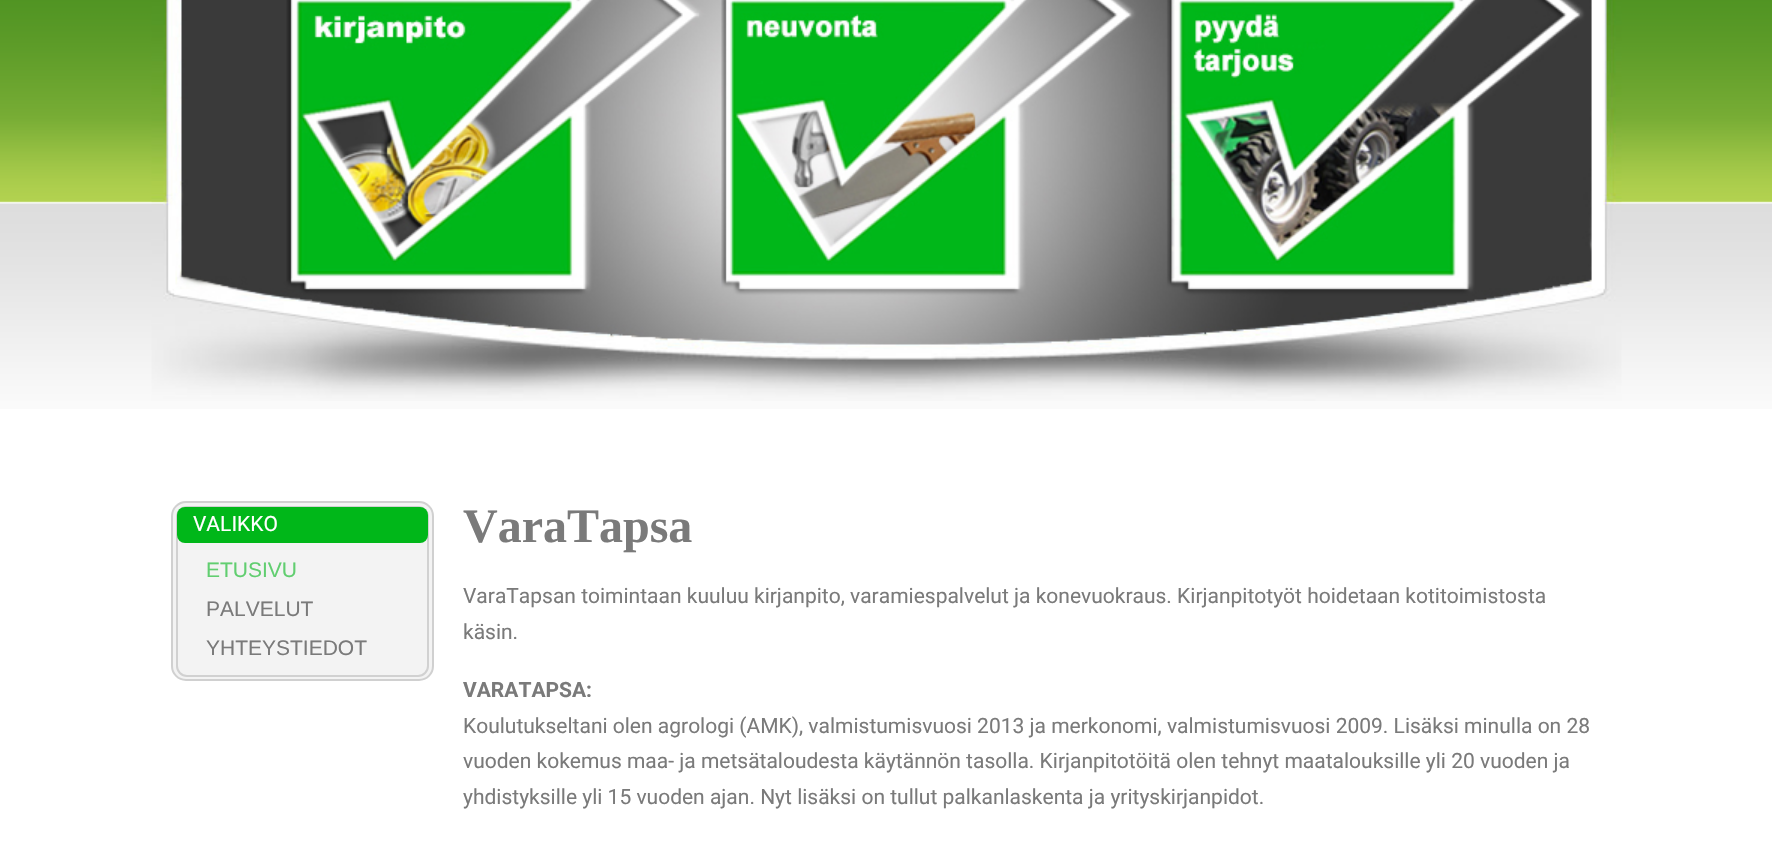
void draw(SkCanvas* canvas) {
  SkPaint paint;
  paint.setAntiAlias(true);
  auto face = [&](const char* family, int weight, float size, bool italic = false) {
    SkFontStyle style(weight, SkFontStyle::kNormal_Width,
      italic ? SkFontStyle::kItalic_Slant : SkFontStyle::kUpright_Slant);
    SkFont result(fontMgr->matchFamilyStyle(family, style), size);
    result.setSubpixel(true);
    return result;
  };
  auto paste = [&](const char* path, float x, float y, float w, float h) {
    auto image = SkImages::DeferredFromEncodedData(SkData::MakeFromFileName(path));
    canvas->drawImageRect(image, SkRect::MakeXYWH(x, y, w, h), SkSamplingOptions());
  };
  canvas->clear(0xffffffff);
  paste("img/1.png", 0, 0, 1772, 409);
  paste("img/2.png", 151, 0, 1471, 401);
  paint.setColor(0xfff3f3f3);
  canvas->drawRoundRect(SkRect::MakeXYWH(171, 501, 263, 180), 15, 15, paint);
  paint.setStroke(true);
  paint.setStrokeWidth(2);
  paint.setColor(0x24020101);
  canvas->drawRoundRect(SkRect::MakeXYWH(172, 502, 261, 178), 14, 14, paint);
  paint.setColor(0xffd1d1d1);
  canvas->drawRoundRect(SkRect::MakeXYWH(177, 507, 251, 169), 10, 10, paint);
  paint.setStroke(false);
  paint.setColor(0xff00b719);
  canvas->drawRoundRect(SkRect::MakeXYWH(177, 507, 251, 36), 8, 8, paint);
  auto f0 = face("Roboto", 400, 21);
  paint.setColor(0xffffffff);
  canvas->drawString("VALIKKO", 193, 531, f0, paint);
  auto f1 = face("Liberation Sans", 400, 21);
  paint.setColor(0xff61ce70);
  canvas->drawString("ETUSIVU", 206, 577, f1, paint);
  paint.setColor(0xff7a7a7a);
  canvas->drawString("PALVELUT", 206, 616, f1, paint);
  canvas->drawString("YHTEYSTIEDOT", 206, 655, f1, paint);
  auto f2 = face("Liberation Serif", 700, 48);
  canvas->drawString("VaraTapsa", 463, 542, f2, paint);
  canvas->drawString("VaraTapsan toimintaan kuuluu kirjanpito, varamiespalvelut ja konevuokraus. Kirjanpitotyöt hoidetaan kotitoimistosta", 463, 603, f0, paint);
  canvas->drawString("käsin.", 463, 639, f0, paint);
  auto f3 = face("Roboto", 700, 21);
  canvas->drawString("VARATAPSA:", 463, 697, f3, paint);
  {
    const struct { const char* s; float x, y; } items[] = {
      {"Koulutukseltani olen agrologi (AMK), valmistumisvuosi 2013 ja merkonomi, valmistumisvuosi 2009. Lisäksi minulla on 28", 463, 733},
      {"vuoden kokemus maa- ja metsätaloudesta käytännön tasolla. Kirjanpitotöitä olen tehnyt maatalouksille yli 20 vuoden ja", 463, 768},
      {"yhdistyksille yli 15 vuoden ajan. Nyt lisäksi on tullut palkanlaskenta ja yrityskirjanpidot.", 463, 804},
    };
    for (auto [s, x, y] : items) {
      canvas->drawString(s, x, y, f0, paint);
    }
  }
}
